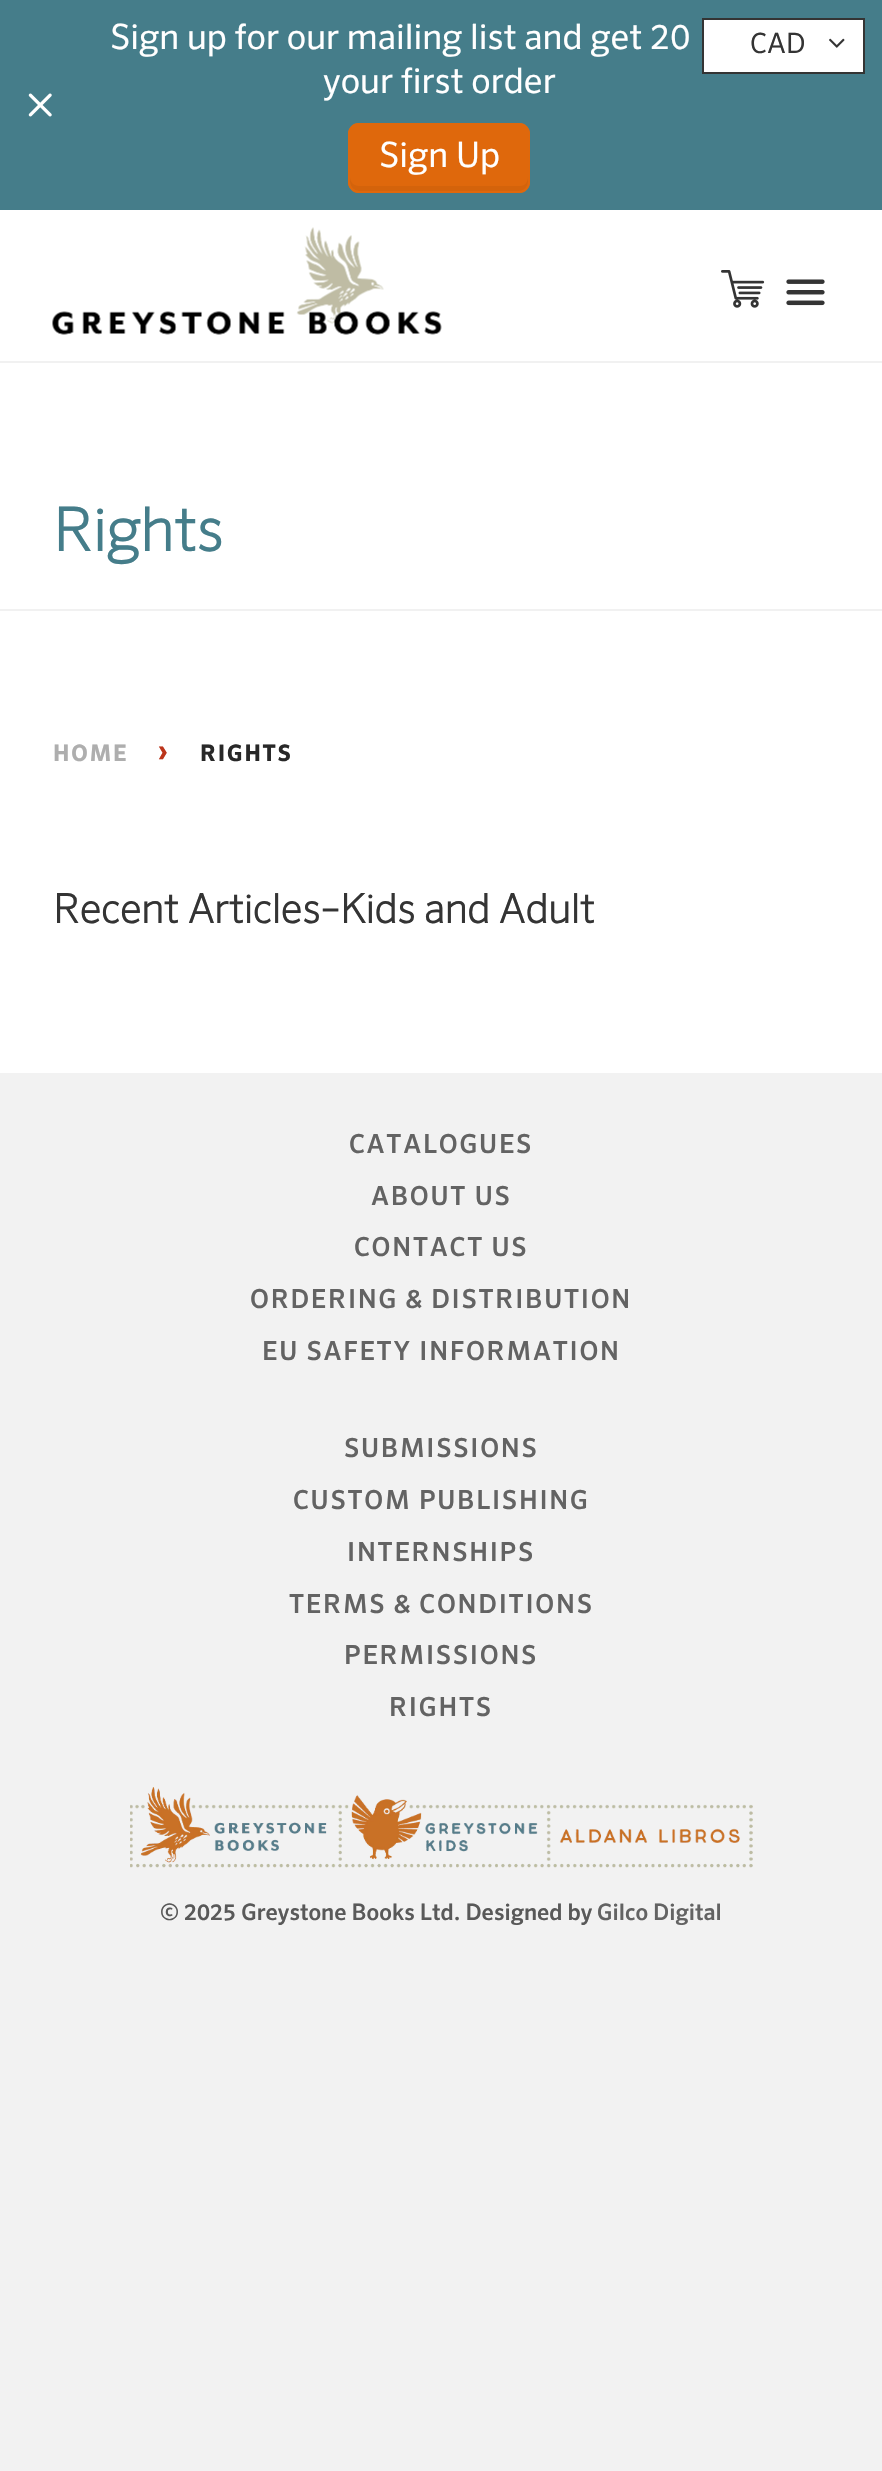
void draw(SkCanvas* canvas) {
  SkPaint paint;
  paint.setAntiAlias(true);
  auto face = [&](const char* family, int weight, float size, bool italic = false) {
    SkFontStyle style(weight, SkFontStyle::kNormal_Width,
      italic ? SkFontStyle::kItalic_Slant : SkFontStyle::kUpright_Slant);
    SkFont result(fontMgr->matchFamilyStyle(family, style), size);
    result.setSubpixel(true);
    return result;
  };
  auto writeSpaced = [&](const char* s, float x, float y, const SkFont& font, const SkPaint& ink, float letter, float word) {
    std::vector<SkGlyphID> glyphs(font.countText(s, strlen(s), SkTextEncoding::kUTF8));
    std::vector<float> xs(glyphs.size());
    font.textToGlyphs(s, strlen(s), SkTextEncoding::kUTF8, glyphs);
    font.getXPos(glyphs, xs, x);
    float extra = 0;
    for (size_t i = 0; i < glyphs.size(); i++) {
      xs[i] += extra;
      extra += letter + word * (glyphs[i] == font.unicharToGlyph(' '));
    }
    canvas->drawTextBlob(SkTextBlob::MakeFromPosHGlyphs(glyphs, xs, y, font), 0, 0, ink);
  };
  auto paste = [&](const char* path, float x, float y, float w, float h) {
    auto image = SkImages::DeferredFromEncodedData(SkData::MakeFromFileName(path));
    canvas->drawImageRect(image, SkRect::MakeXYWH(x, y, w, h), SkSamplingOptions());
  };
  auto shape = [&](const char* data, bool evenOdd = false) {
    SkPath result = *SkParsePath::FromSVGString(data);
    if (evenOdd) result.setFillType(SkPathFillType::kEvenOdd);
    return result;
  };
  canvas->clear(0xfff2f2f2);
  paint.setColor(0xffffffff);
  canvas->drawRect(SkRect::MakeXYWH(0, 210, 882, 863), paint);
  paint.setColor(0xff457d8a);
  canvas->drawRect(SkRect::MakeXYWH(0, 0, 882, 210), paint);
  paste("img/1.png", 28, 93, 24, 24);
  paint.setColor(0xffdf680c);
  canvas->drawRoundRect(SkRect::MakeXYWH(348, 123, 182, 70), 11, 11, paint);
  paint.setColor(0xffd4630b);
  canvas->drawPath(shape("M350 177V182C350 187 354 191 359 191H520C525 191 529 187 529 182V133C529 132 529 130 528 129V177C528 182 525 186 520 186H359C354 186 350 182 350 177Z"), paint);
  paint.setStroke(true);
  paint.setStrokeWidth(2);
  paint.setColor(0xffdf680c);
  canvas->drawRoundRect(SkRect::MakeXYWH(349, 124, 180, 68), 10, 10, paint);
  paint.setStroke(false);
  paint.setColor(0xffffffff);
  canvas->drawRect(SkRect::MakeXYWH(703, 19, 161, 54), paint);
  paint.setStroke(true);
  paint.setColor(0xff343434);
  canvas->drawRect(SkRect::MakeXYWH(703, 19, 161, 54), paint);
  paste("img/2.png", 829, 38, 16, 10);
  paint.setStroke(false);
  paint.setColor(0xfff1f1f1);
  canvas->drawRect(SkRect::MakeXYWH(0, 361, 882, 2), paint);
  paste("img/3.png", 52, 227, 390, 108);
  paste("img/4.png", 721, 270, 44, 38);
  paste("img/5.png", 786, 279, 39, 27);
  canvas->drawRect(SkRect::MakeXYWH(0, 609, 882, 2), paint);
  paste("img/6.png", 130, 1787, 623, 81);
  auto f0 = face("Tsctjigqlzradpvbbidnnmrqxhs", 400, 35);
  paint.setColor(0xffffffff);
  {
    const struct { const char* s; float x, y; } items[] = {
      {"Sign up for our mailing list and get 20", 110, 49},
      {"your first order", 323, 93},
      {"Sign Up", 379, 167},
    };
    for (auto [s, x, y] : items) {
      canvas->drawString(s, x, y, f0, paint);
    }
  }
  auto f1 = face("Tsctjigqlzradpvbbidnnmrqxhs", 400, 28);
  paint.setColor(0xff343434);
  canvas->drawString("CAD", 750, 53, f1, paint);
  auto f2 = face("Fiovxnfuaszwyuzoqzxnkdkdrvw", 700, 59.5f);
  paint.setColor(0xff457d8a);
  canvas->drawString("Rights", 53, 551, f2, paint);
  auto f3 = face("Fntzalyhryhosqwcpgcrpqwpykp", 700, 22.75f);
  paint.setColor(0xffaeaeae);
  writeSpaced("HOME", 53, 761, f3, paint, 1.75f, 0);
  auto f4 = face("Fntzalyhryhosqwcpgcrpqwpykp", 700, 28);
  paint.setColor(0xffbc351b);
  writeSpaced("›", 158, 760, f4, paint, 1.75f, 0);
  paint.setColor(0xff282828);
  writeSpaced("RIGHTS", 200, 761, f3, paint, 1.75f, 0);
  auto f5 = face("Fiovxnfuaszwyuzoqzxnkdkdrvw", 700, 40);
  paint.setColor(0xff343434);
  canvas->drawString("Recent Articles–Kids and Adult", 53, 923, f5, paint);
  auto f6 = face("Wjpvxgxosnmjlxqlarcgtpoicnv", 500, 26.25f);
  paint.setColor(0xff636363);
  {
    const struct { const char* s; float x, y; } items[] = {
      {"CATALOGUES", 349, 1153},
      {"ABOUT US", 371, 1205},
      {"CONTACT US", 354, 1256},
      {"ORDERING & DISTRIBUTION", 250, 1308},
      {"EU SAFETY INFORMATION", 262, 1360},
      {"SUBMISSIONS", 344, 1457},
      {"CUSTOM PUBLISHING", 293, 1509},
      {"INTERNSHIPS", 347, 1561},
      {"TERMS & CONDITIONS", 289, 1613},
      {"PERMISSIONS", 344, 1664},
      {"RIGHTS", 389, 1716},
    };
    for (auto [s, x, y] : items) {
      writeSpaced(s, x, y, f6, paint, 1.75f, 0);
    }
  }
  auto f7 = face("Wjpvxgxosnmjlxqlarcgtpoicnv", 500, 22.75f);
  paint.setColor(0xff595959);
  canvas->drawString("© 2025 Greystone Books Ltd. Designed by", 160, 1920, f7, paint);
  paint.setColor(0xff636363);
  canvas->drawString("Gilco Digital", 597, 1920, f7, paint);
}
